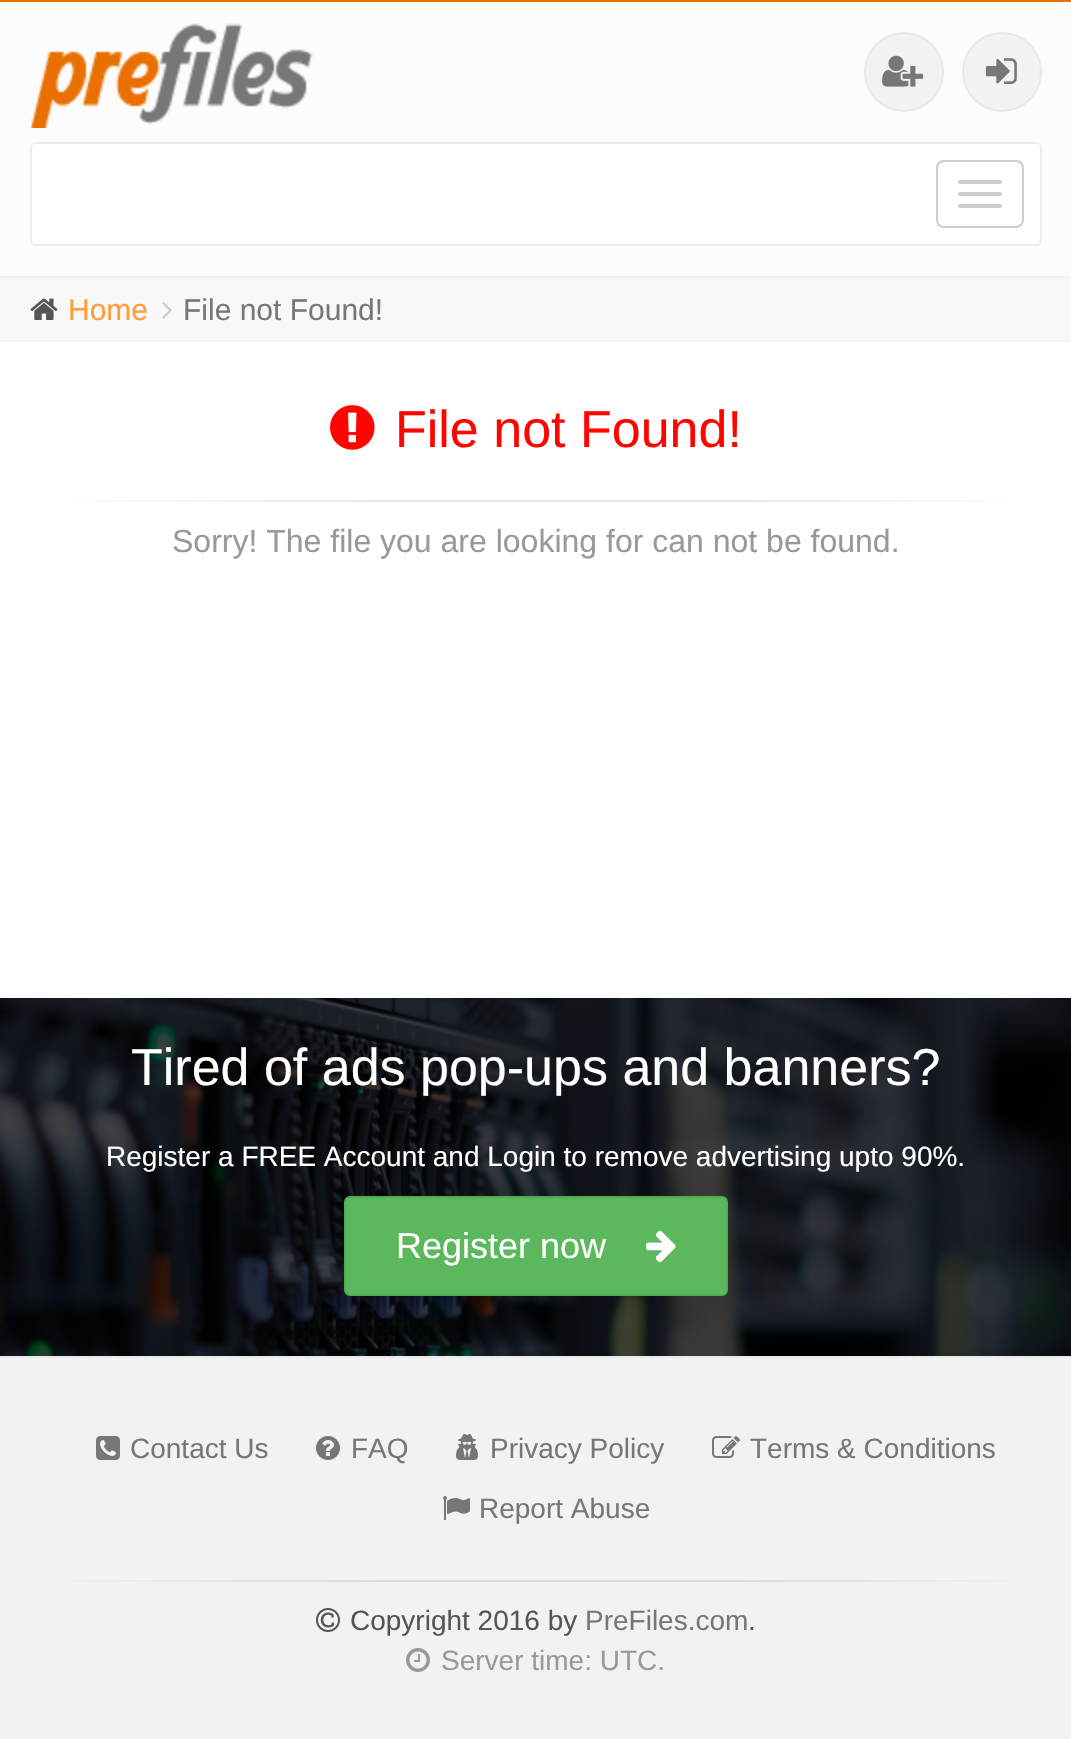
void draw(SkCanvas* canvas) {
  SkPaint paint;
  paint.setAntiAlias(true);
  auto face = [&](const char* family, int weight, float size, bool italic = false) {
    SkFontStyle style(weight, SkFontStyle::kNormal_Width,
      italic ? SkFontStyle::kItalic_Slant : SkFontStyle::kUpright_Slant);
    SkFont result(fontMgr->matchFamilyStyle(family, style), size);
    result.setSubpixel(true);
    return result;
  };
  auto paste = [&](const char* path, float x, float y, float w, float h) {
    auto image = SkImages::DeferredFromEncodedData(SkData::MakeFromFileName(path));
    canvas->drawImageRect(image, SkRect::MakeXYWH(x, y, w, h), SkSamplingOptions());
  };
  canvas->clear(0xffffffff);
  {
    const struct { float x, y, w, h; SkColor color; } items[] = {
      {0, 2, 1071, 274, 0xfffcfcfc},
      {0, 0, 1071, 2, 0xffe97000},
      {0, 276, 1071, 2, 0xfff1f1f1},
    };
    for (auto [x, y, w, h, color] : items) {
      paint.setColor(color);
      canvas->drawRect(SkRect::MakeXYWH(x, y, w, h), paint);
    }
  }
  paste("img/1.png", 30, 23, 283, 105);
  paint.setColor(0xfff2f2f2);
  canvas->drawCircle(904, 72, 39, paint);
  paint.setStroke(true);
  paint.setStrokeWidth(2);
  paint.setColor(0xffe9e9e9);
  canvas->drawCircle(904, 72, 39, paint);
  paste("img/2.png", 882, 55, 42, 32);
  paint.setStroke(false);
  paint.setColor(0xfff2f2f2);
  canvas->drawCircle(1002, 72, 39, paint);
  paint.setStroke(true);
  paint.setColor(0xffe9e9e9);
  canvas->drawCircle(1002, 72, 39, paint);
  paste("img/3.png", 986, 58, 31, 26);
  paint.setStroke(false);
  paint.setColor(0xffffffff);
  canvas->drawRoundRect(SkRect::MakeXYWH(31, 143, 1010, 102), 5, 5, paint);
  paint.setStroke(true);
  paint.setColor(0xffededed);
  canvas->drawRoundRect(SkRect::MakeXYWH(31, 143, 1010, 102), 5, 5, paint);
  paint.setColor(0xffcccccc);
  canvas->drawRoundRect(SkRect::MakeXYWH(937, 161, 86, 66), 7, 7, paint);
  paint.setStroke(false);
  canvas->drawRoundRect(SkRect::MakeXYWH(958, 180, 44, 4), 2, 2, paint);
  canvas->drawRoundRect(SkRect::MakeXYWH(958, 192, 44, 4), 2, 2, paint);
  canvas->drawRoundRect(SkRect::MakeXYWH(958, 204, 44, 4), 2, 2, paint);
  paint.setColor(0xfff8f8f8);
  canvas->drawRect(SkRect::MakeXYWH(0, 278, 1071, 62), paint);
  paint.setColor(0xfff4f4f4);
  canvas->drawRect(SkRect::MakeXYWH(0, 340, 1071, 2), paint);
  paste("img/4.png", 30, 298, 28, 22);
  paste("img/5.png", 162, 302, 10, 17);
  paste("img/6.png", 330, 405, 45, 45);
  {
    const SkColor colors[] = {0xffffffff, 0xffe8e8e8, 0xffe8e8e8, 0xffffffff};
    const float stops[] = {0, 0.35f, 0.7f, 1};
    const SkPoint ends[] = {{30, 501}, {1042, 501}};
    paint.setShader(SkGradientShader::MakeLinear(ends, colors, stops, 4, SkTileMode::kClamp));
    paint.setAlpha(255);
  }
  canvas->drawRect(SkRect::MakeXYWH(69, 500, 940, 2), paint);
  paste("img/7.png", 0, 998, 1071, 358);
  paint.setShader(nullptr);
  paint.setColor(0xff5cb85c);
  canvas->drawRoundRect(SkRect::MakeXYWH(345, 1197, 382, 98), 5, 5, paint);
  paint.setStroke(true);
  paint.setColor(0xff4cae4c);
  canvas->drawRoundRect(SkRect::MakeXYWH(345, 1197, 382, 98), 5, 5, paint);
  paste("img/8.png", 646, 1230, 30, 32);
  paint.setStroke(false);
  paint.setColor(0xfff2f2f2);
  canvas->drawRect(SkRect::MakeXYWH(0, 1358, 1071, 381), paint);
  paint.setColor(0xffe9e9e9);
  canvas->drawRect(SkRect::MakeXYWH(0, 1356, 1071, 2), paint);
  paste("img/9.png", 96, 1436, 24, 24);
  paste("img/10.png", 316, 1436, 24, 24);
  paste("img/11.png", 456, 1434, 22, 26);
  paste("img/12.png", 712, 1436, 28, 22);
  paste("img/13.png", 443, 1496, 27, 24);
  {
    const SkColor colors[] = {0xfff2f2f2, 0xffdcdcdc, 0xffdcdcdc, 0xfff2f2f2};
    const float stops[] = {0, 0.35f, 0.7f, 1};
    const SkPoint ends[] = {{30, 1581}, {1042, 1581}};
    paint.setShader(SkGradientShader::MakeLinear(ends, colors, stops, 4, SkTileMode::kClamp));
    paint.setAlpha(255);
  }
  canvas->drawRect(SkRect::MakeXYWH(70, 1580, 938, 2), paint);
  paste("img/14.png", 316, 1608, 24, 24);
  paste("img/15.png", 406, 1648, 24, 24);
  auto f0 = face("Liberation Sans", 400, 30);
  paint.setShader(nullptr);
  paint.setColor(0xffff9d3a);
  canvas->drawString("Home", 68, 320, f0, paint);
  paint.setColor(0xff777777);
  canvas->drawString("File not Found!", 183, 320, f0, paint);
  auto f1 = face("Liberation Sans", 400, 52);
  paint.setColor(0xffff0500);
  canvas->drawString("File not Found!", 395, 447, f1, paint);
  auto f2 = face("Liberation Sans", 400, 32);
  paint.setColor(0xff999999);
  canvas->drawString("Sorry! The file you are looking for can not be found.", 172, 552, f2, paint);
  paint.setColor(0xffffffff);
  canvas->drawString("Tired of ads pop-ups and banners?", 131, 1085, f1, paint);
  auto f3 = face("Liberation Sans", 400, 28);
  canvas->drawString("Register a FREE Account and Login to remove advertising upto 90%.", 106, 1166, f3, paint);
  auto f4 = face("Liberation Sans", 400, 36);
  canvas->drawString("Register now", 396, 1258, f4, paint);
  paint.setColor(0xff777777);
  {
    const struct { const char* s; float x, y; } items[] = {
      {"Contact Us", 130, 1458},
      {"FAQ", 351, 1458},
      {"Privacy Policy", 490, 1458},
      {"Terms & Conditions", 750, 1458},
      {"Report Abuse", 479, 1518},
    };
    for (auto [s, x, y] : items) {
      canvas->drawString(s, x, y, f3, paint);
    }
  }
  paint.setColor(0xff555555);
  canvas->drawString("Copyright 2016 by", 350, 1630, f3, paint);
  paint.setColor(0xff777777);
  canvas->drawString("PreFiles.com", 585, 1630, f3, paint);
  paint.setColor(0xff555555);
  canvas->drawString(".", 748, 1630, f3, paint);
  paint.setColor(0xff999999);
  canvas->drawString("Server time: UTC.", 441, 1670, f3, paint);
}
